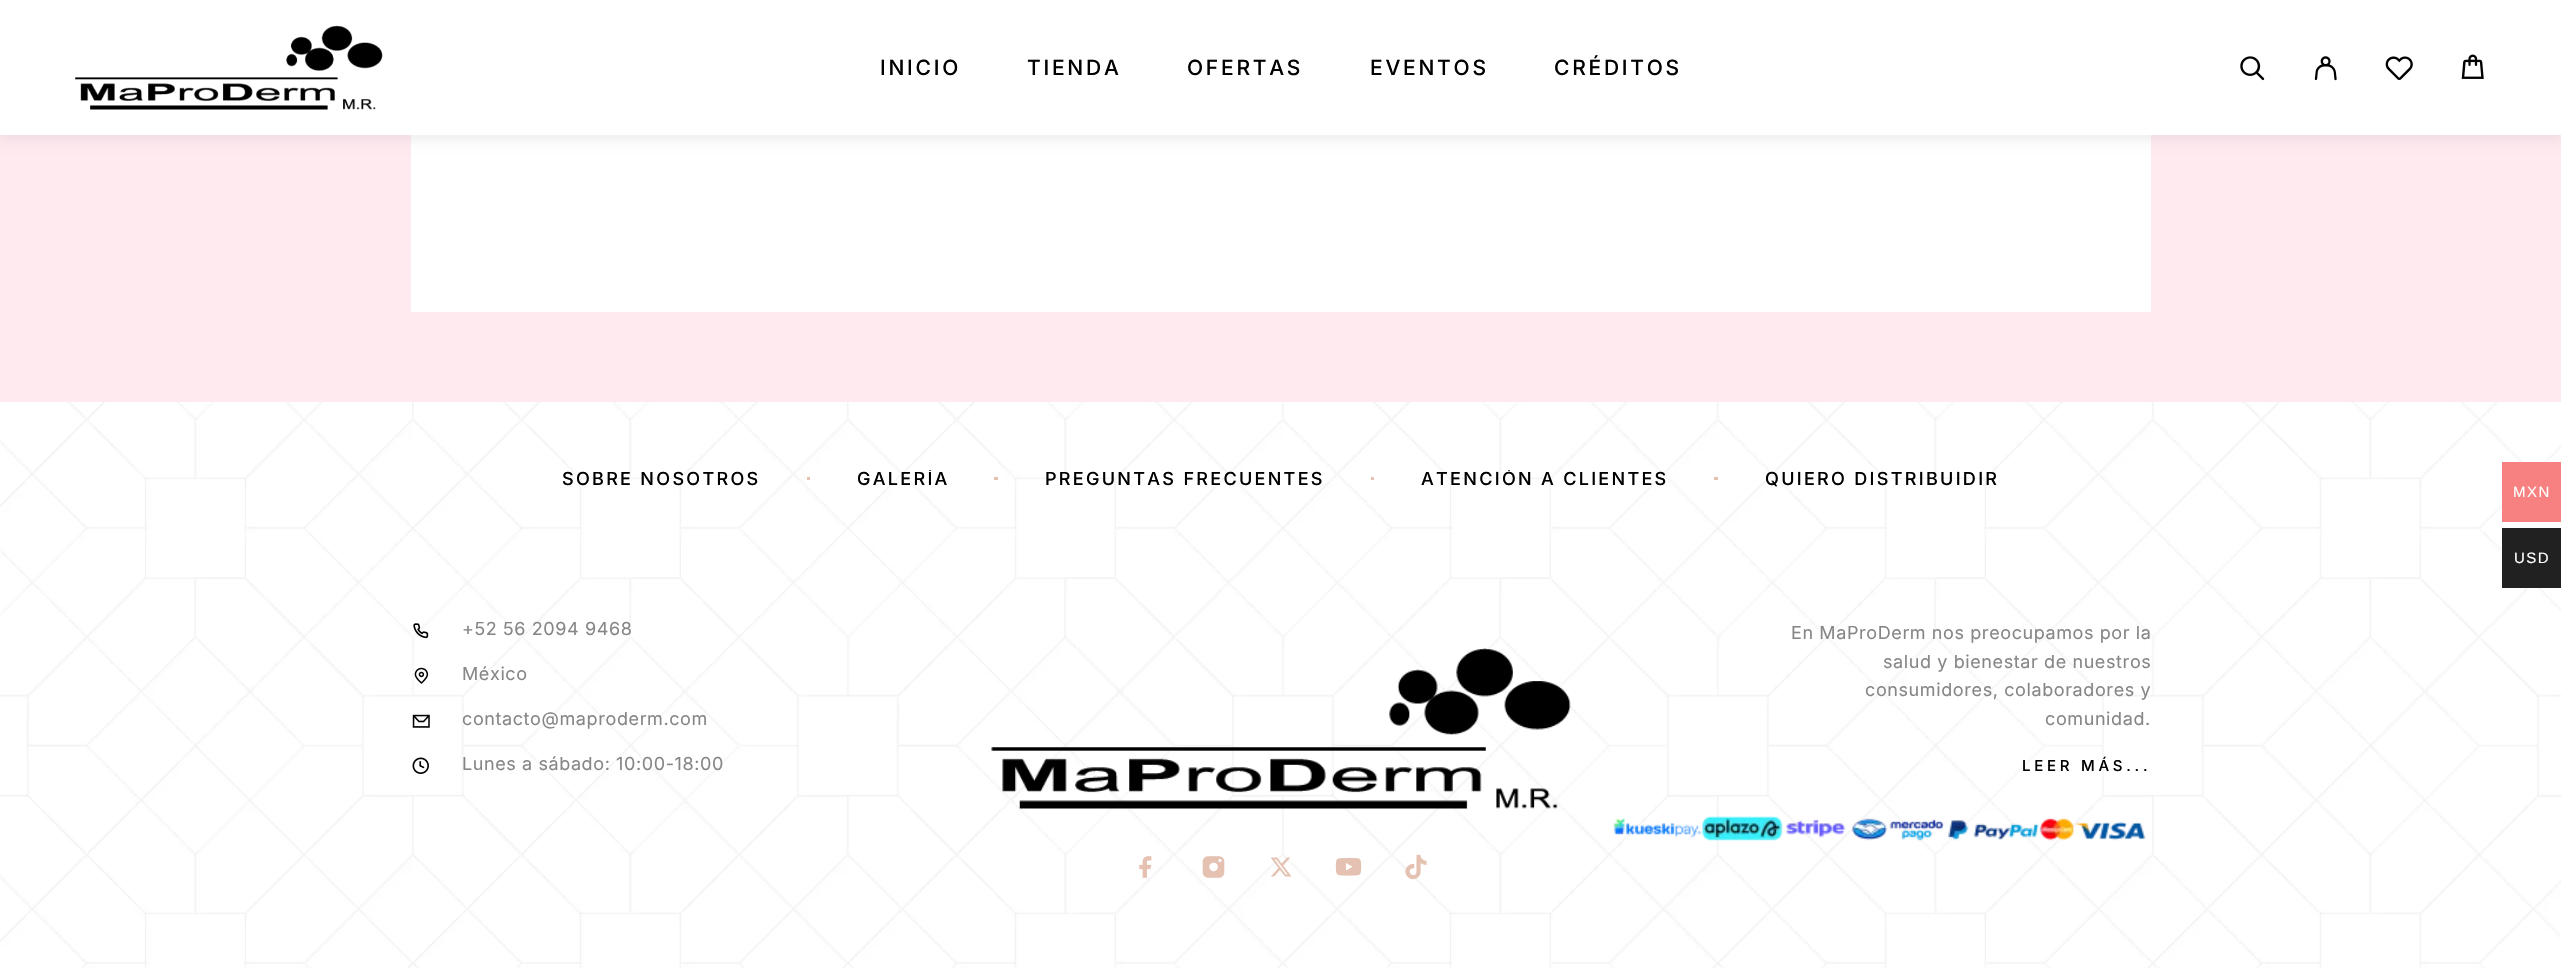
void draw(SkCanvas* canvas) {
  SkPaint paint;
  paint.setAntiAlias(true);
  auto face = [&](const char* family, int weight, float size, bool italic = false) {
    SkFontStyle style(weight, SkFontStyle::kNormal_Width,
      italic ? SkFontStyle::kItalic_Slant : SkFontStyle::kUpright_Slant);
    SkFont result(fontMgr->matchFamilyStyle(family, style), size);
    result.setSubpixel(true);
    return result;
  };
  auto writeSpaced = [&](const char* s, float x, float y, const SkFont& font, const SkPaint& ink, float letter, float word) {
    std::vector<SkGlyphID> glyphs(font.countText(s, strlen(s), SkTextEncoding::kUTF8));
    std::vector<float> xs(glyphs.size());
    font.textToGlyphs(s, strlen(s), SkTextEncoding::kUTF8, glyphs);
    font.getXPos(glyphs, xs, x);
    float extra = 0;
    for (size_t i = 0; i < glyphs.size(); i++) {
      xs[i] += extra;
      extra += letter + word * (glyphs[i] == font.unicharToGlyph(' '));
    }
    canvas->drawTextBlob(SkTextBlob::MakeFromPosHGlyphs(glyphs, xs, y, font), 0, 0, ink);
  };
  auto paste = [&](const char* path, float x, float y, float w, float h) {
    auto image = SkImages::DeferredFromEncodedData(SkData::MakeFromFileName(path));
    canvas->drawImageRect(image, SkRect::MakeXYWH(x, y, w, h), SkSamplingOptions());
  };
  canvas->clear(0xffffeaf0);
  paint.setColor(0xffffffff);
  canvas->drawRect(SkRect::MakeXYWH(411, 135, 1740, 177), paint);
  paint.setColor(0x0f000000);
  paint.setMaskFilter(SkMaskFilter::MakeBlur(kNormal_SkBlurStyle, 5));
  canvas->drawRect(SkRect::MakeXYWH(0, 6, 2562, 135), paint);
  paint.setMaskFilter(nullptr);
  paint.setColor(0xffffffff);
  canvas->drawRect(SkRect::MakeXYWH(0, 0, 2561, 135), paint);
  paste("img/1.png", 75, 25, 308, 85);
  paste("img/2.png", 2240, 56, 25, 25);
  paste("img/3.png", 2314, 56, 23, 25);
  paste("img/4.png", 2385, 56, 28, 24);
  paste("img/5.png", 2461, 54, 23, 25);
  paste("img/6.png", 0, 402, 2561, 566);
  {
    const struct { float x, y, w, h; SkColor color; } items[] = {
      {807, 477, 3, 3, 0xffe4c1b1},
      {994, 477, 4, 3, 0xffe4c1b1},
      {1371, 477, 3, 3, 0xffe4c1b1},
      {1714, 477, 4, 3, 0xffe4c1b1},
    };
    for (auto [x, y, w, h, color] : items) {
      paint.setColor(color);
      canvas->drawRect(SkRect::MakeXYWH(x, y, w, h), paint);
    }
  }
  paste("img/7.png", 413, 623, 16, 16);
  paste("img/8.png", 414, 667, 15, 17);
  paste("img/9.png", 412, 714, 18, 14);
  paste("img/10.png", 412, 757, 17, 17);
  paste("img/11.png", 991, 648, 580, 161);
  paste("img/12.png", 1139, 856, 13, 22);
  paste("img/13.png", 1202, 856, 23, 22);
  paste("img/14.png", 1270, 857, 22, 20);
  paste("img/15.png", 1335, 857, 27, 19);
  paste("img/16.png", 1405, 854, 22, 26);
  paste("img/17.png", 1613, 815, 533, 26);
  paint.setColor(0xfff78080);
  canvas->drawRect(SkRect::MakeXYWH(2502, 462, 59, 60), paint);
  paint.setColor(0xff212121);
  canvas->drawRect(SkRect::MakeXYWH(2502, 528, 59, 60), paint);
  auto f0 = face("Inter", 500, 21);
  paint.setColor(0xff000000);
  {
    const struct { const char* s; float x, y; } items[] = {
      {"INICIO", 880, 75},
      {"TIENDA", 1027, 75},
      {"OFERTAS", 1187, 75},
      {"EVENTOS", 1370, 75},
      {"CRÉDITOS", 1554, 75},
    };
    for (auto [s, x, y] : items) {
      writeSpaced(s, x, y, f0, paint, 2.75f, 0);
    }
  }
  auto f1 = face("Inter", 500, 18);
  writeSpaced("SOBRE NOSOTROS", 562, 485, f1, paint, 2.3f, 0);
  canvas->save();
  canvas->clipRect(SkRect::MakeXYWH(0, 470, 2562, 72));
  writeSpaced("GALERÍA", 857, 485, f1, paint, 2.3f, 0);
  canvas->restore();
  writeSpaced("PREGUNTAS FRECUENTES", 1045, 485, f1, paint, 2.3f, 0);
  canvas->save();
  canvas->clipRect(SkRect::MakeXYWH(0, 470, 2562, 72));
  writeSpaced("ATENCIÓN A CLIENTES", 1421, 485, f1, paint, 2.3f, 0);
  canvas->restore();
  writeSpaced("QUIERO DISTRIBUIDIR", 1765, 485, f1, paint, 2.3f, 0);
  auto f2 = face("Inter", 400, 18);
  paint.setColor(0xff868686);
  {
    const struct { const char* s; float x, y; } items[] = {
      {"+52 56 2094 9468", 462, 635},
      {"México", 462, 680},
      {"contacto@maproderm.com", 462, 725},
      {"Lunes a sábado: 10:00-18:00", 462, 770},
      {"En MaProDerm nos preocupamos por la", 1791, 639},
      {"salud y bienestar de nuestros", 1883, 668},
      {"consumidores, colaboradores y", 1865, 696},
      {"comunidad.", 2045, 725},
    };
    for (auto [s, x, y] : items) {
      writeSpaced(s, x, y, f2, paint, 0.6f, 0);
    }
  }
  auto f3 = face("Inter", 500, 15);
  paint.setColor(0xff000000);
  writeSpaced("LEER MÁS...", 2022, 771, f3, paint, 3.75f, 0);
  auto f4 = face("Liberation Sans", 400, 15);
  paint.setColor(0xffffffff);
  writeSpaced("MXN", 2513, 497, f4, paint, 1.5f, 0);
  writeSpaced("USD", 2514, 563, f4, paint, 1.5f, 0);
}
